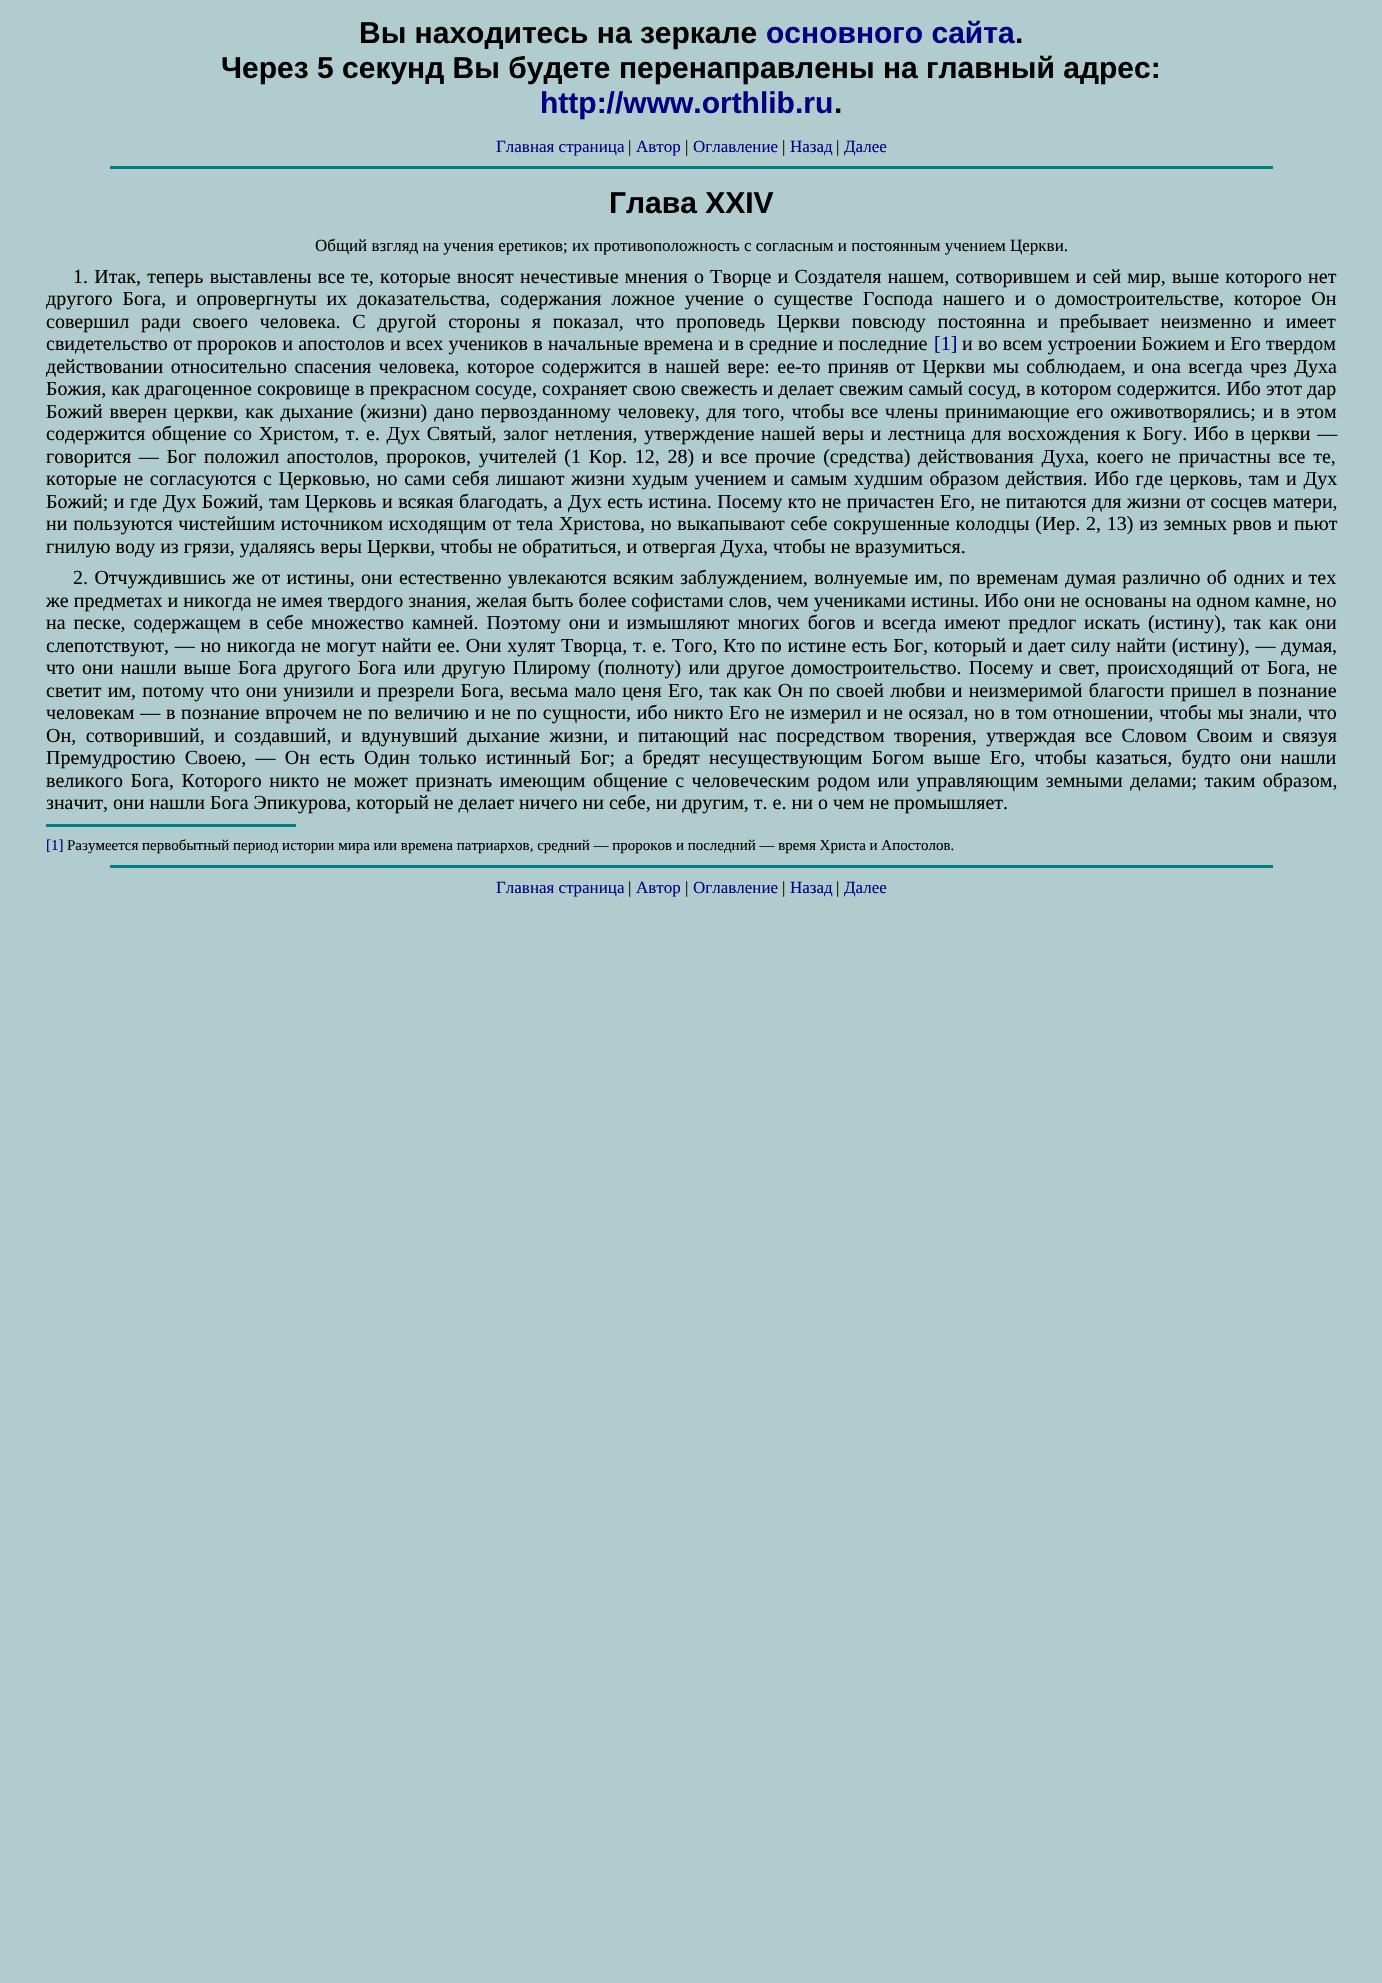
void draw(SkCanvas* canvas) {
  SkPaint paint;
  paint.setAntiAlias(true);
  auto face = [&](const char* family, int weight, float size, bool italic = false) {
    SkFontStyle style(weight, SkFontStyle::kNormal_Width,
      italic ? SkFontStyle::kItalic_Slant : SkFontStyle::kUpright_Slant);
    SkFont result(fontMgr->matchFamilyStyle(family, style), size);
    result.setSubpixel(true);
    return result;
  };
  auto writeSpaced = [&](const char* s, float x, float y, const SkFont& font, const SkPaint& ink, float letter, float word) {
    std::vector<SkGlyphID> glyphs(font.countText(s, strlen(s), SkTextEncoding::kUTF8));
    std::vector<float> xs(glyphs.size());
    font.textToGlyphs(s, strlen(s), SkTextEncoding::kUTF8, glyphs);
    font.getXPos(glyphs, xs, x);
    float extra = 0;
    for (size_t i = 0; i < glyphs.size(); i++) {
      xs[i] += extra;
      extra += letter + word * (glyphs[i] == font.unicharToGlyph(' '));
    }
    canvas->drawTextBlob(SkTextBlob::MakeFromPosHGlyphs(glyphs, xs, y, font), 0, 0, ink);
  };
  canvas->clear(0xffb1ccce);
  {
    const struct { float x, y, w, h; SkColor color; } items[] = {
      {110, 166, 1163, 3, 0xff008080},
      {46, 824, 250, 3, 0xff008080},
      {110, 865, 1163, 3, 0xff008080},
    };
    for (auto [x, y, w, h, color] : items) {
      paint.setColor(color);
      canvas->drawRect(SkRect::MakeXYWH(x, y, w, h), paint);
    }
  }
  auto f0 = face("Liberation Sans", 700, 30);
  paint.setColor(0xff000000);
  canvas->drawString("Вы находитесь на зеркале", 359, 43, f0, paint);
  paint.setColor(0xff000080);
  canvas->drawString("основного сайта", 766, 43, f0, paint);
  paint.setColor(0xff000000);
  canvas->drawString(".", 1015, 43, f0, paint);
  canvas->drawString("Через 5 секунд Вы будете перенаправлены на главный адрес:", 221, 78, f0, paint);
  paint.setColor(0xff000080);
  canvas->drawString("http://www.orthlib.ru", 540, 113, f0, paint);
  paint.setColor(0xff000000);
  canvas->drawString(".", 834, 113, f0, paint);
  auto f1 = face("Liberation Serif", 400, 17);
  paint.setColor(0xff000080);
  canvas->drawString("Главная страница", 496, 152, f1, paint);
  paint.setColor(0xff000000);
  canvas->drawString("|", 628, 152, f1, paint);
  paint.setColor(0xff000080);
  canvas->drawString("Автор", 636, 152, f1, paint);
  paint.setColor(0xff000000);
  canvas->drawString("|", 685, 152, f1, paint);
  paint.setColor(0xff000080);
  canvas->drawString("Оглавление", 693, 152, f1, paint);
  paint.setColor(0xff000000);
  canvas->drawString("|", 782, 152, f1, paint);
  paint.setColor(0xff000080);
  canvas->drawString("Назад", 790, 152, f1, paint);
  paint.setColor(0xff000000);
  canvas->drawString("|", 836, 152, f1, paint);
  paint.setColor(0xff000080);
  canvas->drawString("Далее", 844, 152, f1, paint);
  paint.setColor(0xff000000);
  canvas->drawString("Глава XXIV", 609, 213, f0, paint);
  canvas->drawString("Общий взгляд на учения еретиков; их противоположность с согласным и постоянным учением Церкви.", 315, 251, f1, paint);
  auto f2 = face("Liberation Serif", 400, 20);
  writeSpaced("1. Итак, теперь выставлены все те, которые вносят нечестивые мнения о Творце и Создателя нашем, сотворившем и сей мир, выше которого нет", 73, 283, f2, paint, 0, 1.2f);
  writeSpaced("другого Бога, и опровергнуты их доказательства, содержания ложное учение о существе Господа нашего и о домостроительстве, которое Он", 46, 305, f2, paint, 0, 4.9f);
  writeSpaced("совершил ради своего человека. С другой стороны я показал, что проповедь Церкви повсюду постоянна и пребывает неизменно и имеет", 46, 328, f2, paint, 0, 6.75f);
  writeSpaced("свидетельство от пророков и апостолов и всех учеников в начальные времена и в средние и последние", 46, 350, f2, paint, 0, 0.25f);
  paint.setColor(0xff000080);
  canvas->drawString("[1]", 934, 350, f2, paint);
  paint.setColor(0xff000000);
  writeSpaced("и во всем устроении Божием и Его твердом", 962, 350, f2, paint, 0, 0.25f);
  writeSpaced("действовании относительно спасения человека, которое содержится в нашей вере: ее-то приняв от Церкви мы соблюдаем, и она всегда чрез Духа", 46, 373, f2, paint, 0, 2.4f);
  writeSpaced("Божия, как драгоценное сокровище в прекрасном сосуде, сохраняет свою свежесть и делает свежим самый сосуд, в котором содержится. Ибо этот дар", 46, 395, f2, paint, 0, 0.1f);
  writeSpaced("Божий вверен церкви, как дыхание (жизни) дано первозданному человеку, для того, чтобы все члены принимающие его оживотворялись; и в этом", 46, 418, f2, paint, 0, 1.9f);
  writeSpaced("содержится общение со Христом, т. е. Дух Святый, залог нетления, утверждение нашей веры и лестница для восхождения к Богу. Ибо в церкви —", 46, 440, f2, paint, 0, 1.6f);
  writeSpaced("говорится — Бог положил апостолов, пророков, учителей (1 Кор. 12, 28) и все прочие (средства) действования Духа, коего не причастны все те,", 46, 463, f2, paint, 0, 2.7f);
  writeSpaced("которые не согласуются с Церковью, но сами себя лишают жизни худым учением и самым худшим образом действия. Ибо где церковь, там и Дух", 46, 485, f2, paint, 0, 1.7f);
  writeSpaced("Божий; и где Дух Божий, там Церковь и всякая благодать, а Дух есть истина. Посему кто не причастен Его, не питаются для жизни от сосцев матери,", 46, 508, f2, paint, 0, 0.5f);
  writeSpaced("ни пользуются чистейшим источником исходящим от тела Христова, но выкапывают себе сокрушенные колодцы (Иер. 2, 13) из земных рвов и пьют", 46, 530, f2, paint, 0, 0.75f);
  canvas->drawString("гнилую воду из грязи, удаляясь веры Церкви, чтобы не обратиться, и отвергая Духа, чтобы не вразумиться.", 46, 553, f2, paint);
  writeSpaced("2. Отчуждившись же от истины, они естественно увлекаются всяким заблуждением, волнуемые им, по временам думая различно об одних и тех", 73, 584, f2, paint, 0, 1.4f);
  canvas->drawString("же предметах и никогда не имея твердого знания, желая быть более софистами слов, чем учениками истины. Ибо они не основаны на одном камне, но", 46, 607, f2, paint);
  writeSpaced("на песке, содержащем в себе множество камней. Поэтому они и измышляют многих богов и всегда имеют предлог искать (истину), так как они", 46, 629, f2, paint, 0, 2.9f);
  writeSpaced("слепотствуют, — но никогда не могут найти ее. Они хулят Творца, т. е. Того, Кто по истине есть Бог, который и дает силу найти (истину), — думая,", 46, 652, f2, paint, 0, 0.75f);
  writeSpaced("что они нашли выше Бога другого Бога или другую Плирому (полноту) или другое домостроительство. Посему и свет, происходящий от Бога, не", 46, 674, f2, paint, 0, 2.25f);
  writeSpaced("светит им, потому что они унизили и презрели Бога, весьма мало ценя Его, так как Он по своей любви и неизмеримой благости пришел в познание", 46, 697, f2, paint, 0, 1.25f);
  writeSpaced("человекам — в познание впрочем не по величию и не по сущности, ибо никто Его не измерил и не осязал, но в том отношении, чтобы мы знали, что", 46, 719, f2, paint, 0, 0.7f);
  writeSpaced("Он, сотворивший, и создавший, и вдунувший дыхание жизни, и питающий нас посредством творения, утверждая все Словом Своим и связуя", 46, 742, f2, paint, 0, 4.5f);
  writeSpaced("Премудростию Своею, — Он есть Один только истинный Бог; а бредят несуществующим Богом выше Его, чтобы казаться, будто они нашли", 46, 764, f2, paint, 0, 4.25f);
  writeSpaced("великого Бога, Которого никто не может признать имеющим общение с человеческим родом или управляющим земными делами; таким образом,", 46, 787, f2, paint, 0, 2.5f);
  canvas->drawString("значит, они нашли Бога Эпикурова, который не делает ничего ни себе, ни другим, т. е. ни о чем не промышляет.", 46, 809, f2, paint);
  auto f3 = face("Liberation Serif", 400, 15);
  paint.setColor(0xff000080);
  canvas->drawString("[1]", 46, 850, f3, paint);
  paint.setColor(0xff000000);
  canvas->drawString("Разумеется первобытный период истории мира или времена патриархов, средний — пророков и последний — время Христа и Апостолов.", 67, 850, f3, paint);
  paint.setColor(0xff000080);
  canvas->drawString("Главная страница", 496, 893, f1, paint);
  paint.setColor(0xff000000);
  canvas->drawString("|", 628, 893, f1, paint);
  paint.setColor(0xff000080);
  canvas->drawString("Автор", 636, 893, f1, paint);
  paint.setColor(0xff000000);
  canvas->drawString("|", 685, 893, f1, paint);
  paint.setColor(0xff000080);
  canvas->drawString("Оглавление", 693, 893, f1, paint);
  paint.setColor(0xff000000);
  canvas->drawString("|", 782, 893, f1, paint);
  paint.setColor(0xff000080);
  canvas->drawString("Назад", 790, 893, f1, paint);
  paint.setColor(0xff000000);
  canvas->drawString("|", 836, 893, f1, paint);
  paint.setColor(0xff000080);
  canvas->drawString("Далее", 844, 893, f1, paint);
}
